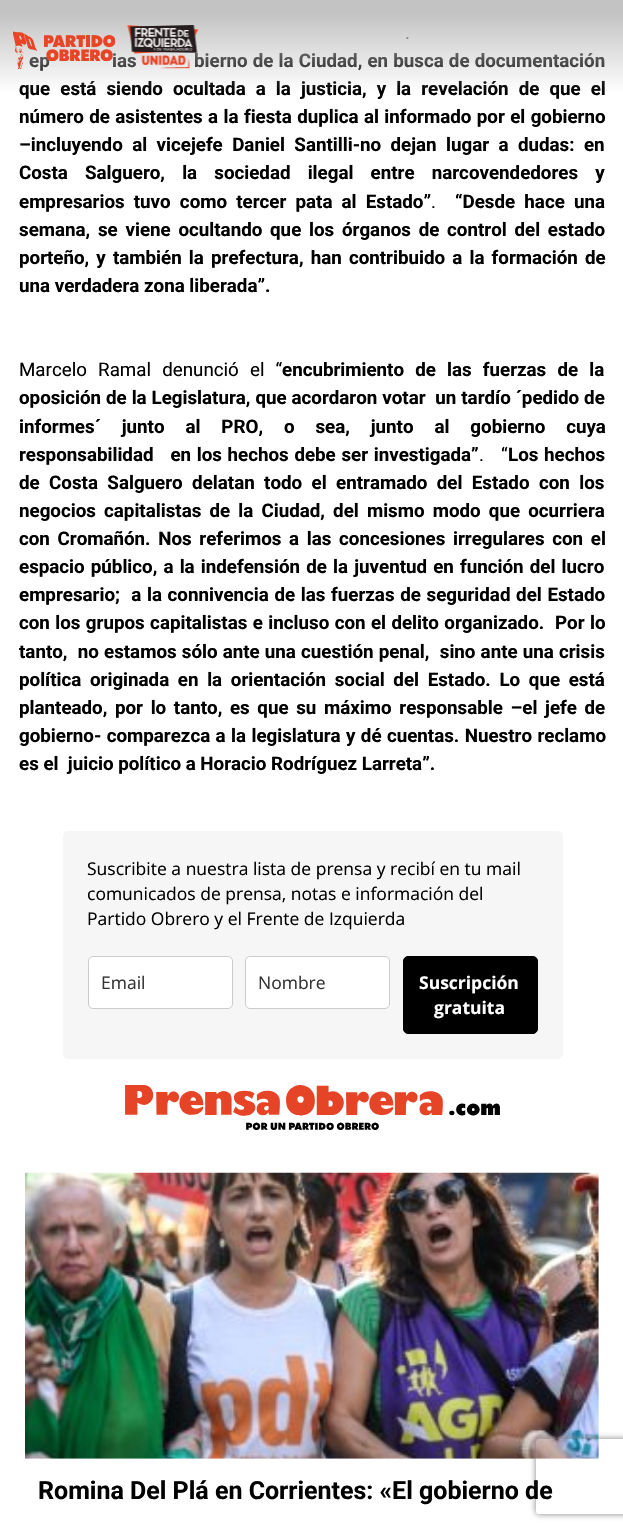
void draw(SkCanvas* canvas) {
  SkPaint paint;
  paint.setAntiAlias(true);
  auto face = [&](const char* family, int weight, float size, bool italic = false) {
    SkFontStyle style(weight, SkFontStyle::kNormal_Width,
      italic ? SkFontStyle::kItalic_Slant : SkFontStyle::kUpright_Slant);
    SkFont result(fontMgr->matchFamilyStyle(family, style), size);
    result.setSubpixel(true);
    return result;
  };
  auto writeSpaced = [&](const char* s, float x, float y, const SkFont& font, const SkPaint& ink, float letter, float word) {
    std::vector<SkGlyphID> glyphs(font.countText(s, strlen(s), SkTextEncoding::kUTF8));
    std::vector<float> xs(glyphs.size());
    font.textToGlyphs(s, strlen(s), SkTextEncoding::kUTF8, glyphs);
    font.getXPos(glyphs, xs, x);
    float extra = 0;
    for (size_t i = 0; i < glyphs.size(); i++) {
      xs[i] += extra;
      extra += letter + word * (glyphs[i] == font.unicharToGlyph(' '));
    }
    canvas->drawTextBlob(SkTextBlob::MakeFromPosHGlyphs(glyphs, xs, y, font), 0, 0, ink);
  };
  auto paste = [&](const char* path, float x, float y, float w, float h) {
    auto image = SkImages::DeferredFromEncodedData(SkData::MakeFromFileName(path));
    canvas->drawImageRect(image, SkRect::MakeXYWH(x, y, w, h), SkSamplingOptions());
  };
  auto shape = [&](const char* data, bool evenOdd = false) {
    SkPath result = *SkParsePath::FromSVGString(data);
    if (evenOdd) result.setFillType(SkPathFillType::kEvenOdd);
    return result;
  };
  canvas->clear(0xffffffff);
  paint.setColor(0xfff6f6f6);
  canvas->drawRoundRect(SkRect::MakeXYWH(63, 831, 500, 228), 5, 5, paint);
  paint.setColor(0xffffffff);
  canvas->drawRoundRect(SkRect::MakeXYWH(88.5f, 956.5f, 144, 52), 4.5f, 4.5f, paint);
  paint.setStroke(true);
  paint.setStrokeWidth(1);
  paint.setColor(0xffcccccc);
  canvas->drawRoundRect(SkRect::MakeXYWH(88.5f, 956.5f, 144, 52), 4.5f, 4.5f, paint);
  paint.setStroke(false);
  paint.setColor(0xffffffff);
  canvas->drawRoundRect(SkRect::MakeXYWH(245.5f, 956.5f, 144, 52), 4.5f, 4.5f, paint);
  paint.setStroke(true);
  paint.setColor(0xffcccccc);
  canvas->drawRoundRect(SkRect::MakeXYWH(245.5f, 956.5f, 144, 52), 4.5f, 4.5f, paint);
  paint.setStroke(false);
  paint.setColor(0xff000000);
  canvas->drawRoundRect(SkRect::MakeXYWH(403.5f, 956.5f, 134, 77), 4.5f, 4.5f, paint);
  paint.setStroke(true);
  canvas->drawRoundRect(SkRect::MakeXYWH(403.5f, 956.5f, 134, 77), 4.5f, 4.5f, paint);
  paste("img/4.png", 125, 1085, 375, 45);
  paste("img/5.png", 25, 1172, 574, 287);
  canvas->save();
  canvas->clipPath(shape("M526 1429H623V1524H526ZM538.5 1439H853.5C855 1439 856 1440 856 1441.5V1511.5C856 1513 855 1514 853.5 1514H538.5C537 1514 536 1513 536 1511.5V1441.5C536 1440 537 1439 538.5 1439Z", true), true);
  paint.setStroke(false);
  paint.setColor(0xff808080);
  paint.setMaskFilter(SkMaskFilter::MakeBlur(kNormal_SkBlurStyle, 3));
  canvas->drawRoundRect(SkRect::MakeXYWH(536, 1439, 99, 75), 2.5f, 2.5f, paint);
  paint.setMaskFilter(nullptr);
  canvas->restore();
  auto f0 = face("Roboto", 400, 18.75f);
  paint.setColor(0xff000000);
  writeSpaced(".", 405, 39, f0, paint, 0, 8);
  auto f1 = face("Roboto", 700, 18.75f);
  {
    const struct { const char* s; float x, y; } items[] = {
      {"ep", 29, 67},
      {"ias", 112, 67},
      {"bierno de la Ciudad, en busca de documentación", 194, 67},
    };
    for (auto [s, x, y] : items) {
      writeSpaced(s, x, y, f1, paint, 0, 0.5f);
    }
  }
  writeSpaced("que está siendo ocultada a la justicia, y la revelación de que el", 19, 95, f1, paint, 0, 5.4f);
  {
    const SkColor colors[] = {0xffc3c3c3, 0x00c3c3c3};
    const float stops[] = {0.14f, 1};
    const SkPoint ends[] = {{312, 0}, {312, 93}};
    paint.setShader(SkGradientShader::MakeLinear(ends, colors, stops, 2, SkTileMode::kClamp));
    paint.setAlpha(255);
  }
  canvas->drawRect(SkRect::MakeXYWH(0, 0, 623, 91), paint);
  paste("img/3.png", 127, 25, 72, 44);
  paste("img/2.png", 44, 35, 71, 26);
  paste("img/1.png", 13, 31, 25, 38);
  paint.setShader(nullptr);
  paint.setColor(0xff000000);
  writeSpaced("número de asistentes a la fiesta duplica al informado por el gobierno", 19, 123, f1, paint, 0, 0.75f);
  writeSpaced("–incluyendo al vicejefe Daniel Santilli-no dejan lugar a dudas: en", 19, 151, f1, paint, 0, 4.75f);
  writeSpaced("Costa Salguero, la sociedad ilegal entre narcovendedores y", 19, 179, f1, paint, 0, 12.5f);
  writeSpaced("empresarios tuvo como tercer pata al Estado”", 19, 208, f1, paint, 0, 4.5f);
  canvas->drawString(".", 431, 208, f0, paint);
  writeSpaced("“Desde hace una", 455, 208, f1, paint, 0, 4.5f);
  writeSpaced("semana, se viene ocultando que los órganos de control del estado", 19, 236, f1, paint, 0, 3.1f);
  writeSpaced("porteño, y también la prefectura, han contribuido a la formación de", 19, 264, f1, paint, 0, 2.5f);
  canvas->drawString("una verdadera zona liberada”.", 19, 292, f1, paint);
  writeSpaced("Marcelo Ramal denunció el “", 19, 376, f0, paint, 0, 6.5f);
  writeSpaced("encubrimiento de las fuerzas de la", 282, 376, f1, paint, 0, 6.5f);
  writeSpaced("oposición de la Legislatura, que acordaron votar  un tardío ´pedido de", 19, 404, f1, paint, 0, 0.25f);
  writeSpaced("informes´ junto al PRO, o sea, junto al gobierno cuya", 19, 433, f1, paint, 0, 16.25f);
  writeSpaced("responsabilidad   en los hechos debe ser investigada”", 19, 461, f1, paint, 0, 1);
  writeSpaced(".   “", 479, 461, f0, paint, 0, 1);
  writeSpaced("Los hechos", 508, 461, f1, paint, 0, 1);
  writeSpaced("de Costa Salguero delatan todo el entramado del Estado con los", 19, 489, f1, paint, 0, 4.75f);
  writeSpaced("negocios capitalistas de la Ciudad, del mismo modo que ocurriera", 19, 517, f1, paint, 0, 3.5f);
  writeSpaced("con Cromañón. Nos referimos a las concesiones irregulares con el", 19, 545, f1, paint, 0, 3);
  writeSpaced("espacio público, a la indefensión de la juventud en función del lucro", 19, 573, f1, paint, 0, 1.5f);
  writeSpaced("empresario;  a la connivencia de las fuerzas de seguridad del Estado", 19, 601, f1, paint, 0, 1);
  writeSpaced("con los grupos capitalistas e incluso con el delito organizado.  Por lo", 19, 629, f1, paint, 0, 0.75f);
  writeSpaced("tanto,  no estamos sólo ante una cuestión penal,  sino ante una crisis", 19, 658, f1, paint, 0, 0.5f);
  writeSpaced("política originada en la orientación social del Estado. Lo que está", 19, 686, f1, paint, 0, 4);
  writeSpaced("planteado, por lo tanto, es que su máximo responsable –el jefe de", 19, 714, f1, paint, 0, 3);
  writeSpaced("gobierno- comparezca a la legislatura y dé cuentas. Nuestro reclamo", 19, 742, f1, paint, 0, 0.75f);
  canvas->drawString("es el  juicio político a Horacio Rodríguez Larreta”.", 19, 770, f1, paint);
  auto f2 = face("Open Sans", 400, 17.5f);
  {
    const struct { const char* s; float x, y; } items[] = {
      {"Suscribite a nuestra lista de prensa y recibí en tu mail", 87, 875},
      {"comunicados de prensa, notas e información del", 87, 900},
      {"Partido Obrero y el Frente de Izquierda", 87, 925},
    };
    for (auto [s, x, y] : items) {
      canvas->drawString(s, x, y, f2, paint);
    }
  }
  paint.setColor(0xff333333);
  canvas->drawString("Email", 101, 989, f2, paint);
  canvas->drawString("Nombre", 258, 989, f2, paint);
  auto f3 = face("Open Sans", 700, 17.5f);
  paint.setColor(0xffffffff);
  canvas->drawString("Suscripción", 419, 989, f3, paint);
  canvas->drawString("gratuita", 434, 1014, f3, paint);
  auto f4 = face("Roboto", 700, 25);
  paint.setColor(0xff000000);
  canvas->drawString("Romina Del Plá en Corrientes: «El gobierno de", 38, 1499, f4, paint);
}
